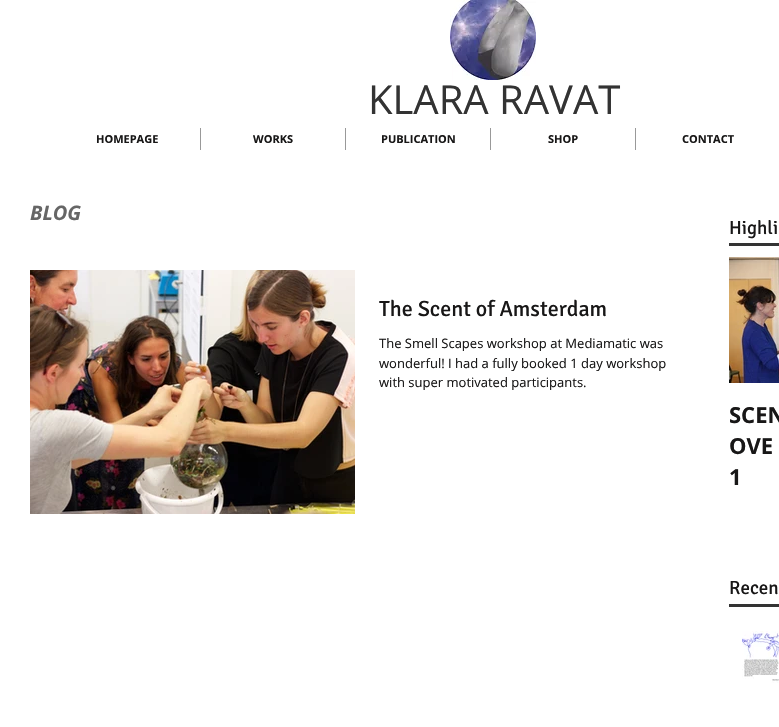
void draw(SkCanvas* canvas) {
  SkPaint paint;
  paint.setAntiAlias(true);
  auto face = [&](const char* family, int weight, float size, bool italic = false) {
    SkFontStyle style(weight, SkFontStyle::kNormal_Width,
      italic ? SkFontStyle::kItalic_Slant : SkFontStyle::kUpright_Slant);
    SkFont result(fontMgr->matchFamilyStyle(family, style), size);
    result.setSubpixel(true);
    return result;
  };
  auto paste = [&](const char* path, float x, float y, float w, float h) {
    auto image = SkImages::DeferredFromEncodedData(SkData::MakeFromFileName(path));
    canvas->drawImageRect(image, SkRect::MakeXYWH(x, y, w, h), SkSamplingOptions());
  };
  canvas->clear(0xffffffff);
  paste("img/1.png", 450, 0, 86, 80);
  {
    const struct { float x, y, w, h; SkColor color; } items[] = {
      {200, 128, 1, 22, 0xff999999},
      {345, 128, 1, 22, 0xff999999},
      {490, 128, 1, 22, 0xff999999},
      {635, 128, 1, 22, 0xff999999},
      {729, 243, 50, 3, 0xff333333},
    };
    for (auto [x, y, w, h, color] : items) {
      paint.setColor(color);
      canvas->drawRect(SkRect::MakeXYWH(x, y, w, h), paint);
    }
  }
  paste("img/2.png", 30, 270, 325, 244);
  paste("img/3.png", 729, 257, 50, 126);
  canvas->drawRect(SkRect::MakeXYWH(729, 604, 50, 3), paint);
  paste("img/4.png", 742, 631, 37, 53);
  auto f0 = face("Open Sans", 400, 40);
  canvas->drawString("KLARA RAVAT", 368, 114, f0, paint);
  auto f1 = face("Open Sans", 700, 11);
  paint.setColor(0xff181717);
  {
    const struct { const char* s; float x, y; } items[] = {
      {"HOMEPAGE", 96, 143},
      {"WORKS", 253, 143},
      {"PUBLICATION", 381, 143},
      {"SHOP", 548, 143},
      {"CONTACT", 682, 143},
    };
    for (auto [s, x, y] : items) {
      canvas->drawString(s, x, y, f1, paint);
    }
  }
  auto f2 = face("Open Sans", 700, 20, true);
  paint.setColor(0xff666666);
  canvas->drawString("BLOG", 30, 220, f2, paint);
  auto f3 = face("Signika", 400, 19);
  paint.setColor(0xff181717);
  canvas->drawString("Highli", 729, 234, f3, paint);
  auto f4 = face("Signika", 400, 22);
  canvas->drawString("The Scent of Amsterdam", 379, 316, f4, paint);
  auto f5 = face("Open Sans", 400, 13);
  {
    const struct { const char* s; float x, y; } items[] = {
      {"The Smell Scapes workshop at Mediamatic was", 379, 348},
      {"wonderful! I had a fully booked 1 day workshop", 379, 368},
      {"with super motivated participants.", 379, 387},
    };
    for (auto [s, x, y] : items) {
      canvas->drawString(s, x, y, f5, paint);
    }
  }
  auto f6 = face("Open Sans", 700, 22);
  {
    const struct { const char* s; float x, y; } items[] = {
      {"SCEN", 729, 423},
      {"OVE", 729, 454},
      {"1", 729, 485},
    };
    for (auto [s, x, y] : items) {
      canvas->drawString(s, x, y, f6, paint);
    }
  }
  canvas->drawString("Recen", 729, 594, f3, paint);
}
